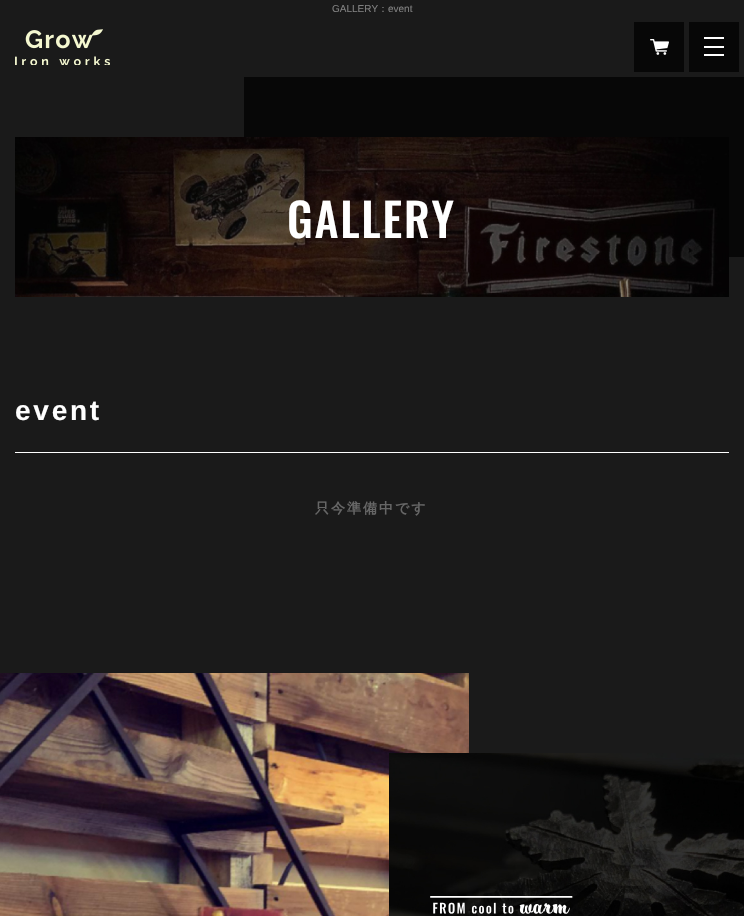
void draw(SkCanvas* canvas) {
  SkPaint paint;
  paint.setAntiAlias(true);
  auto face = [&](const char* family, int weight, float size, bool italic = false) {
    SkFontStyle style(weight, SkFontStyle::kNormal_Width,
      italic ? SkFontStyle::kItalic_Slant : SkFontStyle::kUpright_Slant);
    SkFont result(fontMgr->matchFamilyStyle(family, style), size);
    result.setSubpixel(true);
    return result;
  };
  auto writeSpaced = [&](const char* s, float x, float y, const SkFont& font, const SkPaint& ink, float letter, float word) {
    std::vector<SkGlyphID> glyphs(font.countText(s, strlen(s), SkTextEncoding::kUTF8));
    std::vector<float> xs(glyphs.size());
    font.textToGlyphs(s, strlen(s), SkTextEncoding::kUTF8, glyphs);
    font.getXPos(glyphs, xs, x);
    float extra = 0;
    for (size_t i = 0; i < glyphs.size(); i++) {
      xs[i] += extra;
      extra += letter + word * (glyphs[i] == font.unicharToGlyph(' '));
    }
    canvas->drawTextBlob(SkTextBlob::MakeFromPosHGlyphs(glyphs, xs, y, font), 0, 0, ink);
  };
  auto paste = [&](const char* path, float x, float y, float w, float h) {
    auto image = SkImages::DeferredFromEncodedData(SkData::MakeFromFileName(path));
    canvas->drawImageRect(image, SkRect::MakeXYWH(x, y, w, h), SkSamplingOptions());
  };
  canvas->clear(0xff1a1a1a);
  paste("img/1.png", 15, 29, 95, 36);
  paint.setColor(0xff070707);
  canvas->drawRect(SkRect::MakeXYWH(634, 22, 50, 50), paint);
  paste("img/2.png", 650, 39, 19, 16);
  {
    const struct { float x, y, w, h; SkColor color; } items[] = {
      {689, 22, 50, 50, 0xff070707},
      {704, 37, 20, 2, 0xffffffff},
      {704, 46, 20, 2, 0xffffffff},
      {704, 54, 20, 2, 0xffffffff},
      {244, 77, 500, 180, 0xff070707},
    };
    for (auto [x, y, w, h, color] : items) {
      paint.setColor(color);
      canvas->drawRect(SkRect::MakeXYWH(x, y, w, h), paint);
    }
  }
  paste("img/3.png", 15, 137, 714, 160);
  paint.setColor(0xffffffff);
  canvas->drawRect(SkRect::MakeXYWH(15, 452, 714, 1), paint);
  paste("img/4.png", 0, 673, 469, 243);
  paste("img/5.png", 389, 753, 355, 163);
  paste("img/6.png", 430, 896, 143, 18);
  auto f0 = face("Liberation Sans", 400, 10);
  paint.setColor(0xff808080);
  canvas->drawString("GALLERY", 332, 12, f0, paint);
  auto f1 = face("WenQuanYi Zen Hei", 500, 10);
  canvas->drawString("：", 378, 12, f1, paint);
  canvas->drawString("event", 388, 12, f0, paint);
  auto f2 = face("Oswald", 500, 46);
  paint.setColor(0xffffffff);
  writeSpaced("GALLERY", 287, 238, f2, paint, 1.75f, 0);
  auto f3 = face("Liberation Sans", 700, 28);
  writeSpaced("event", 15, 420, f3, paint, 2.75f, 0);
  auto f4 = face("WenQuanYi Zen Hei", 700, 14);
  paint.setColor(0xff666666);
  writeSpaced("只今準備中です", 315, 513, f4, paint, 2, 0);
}
